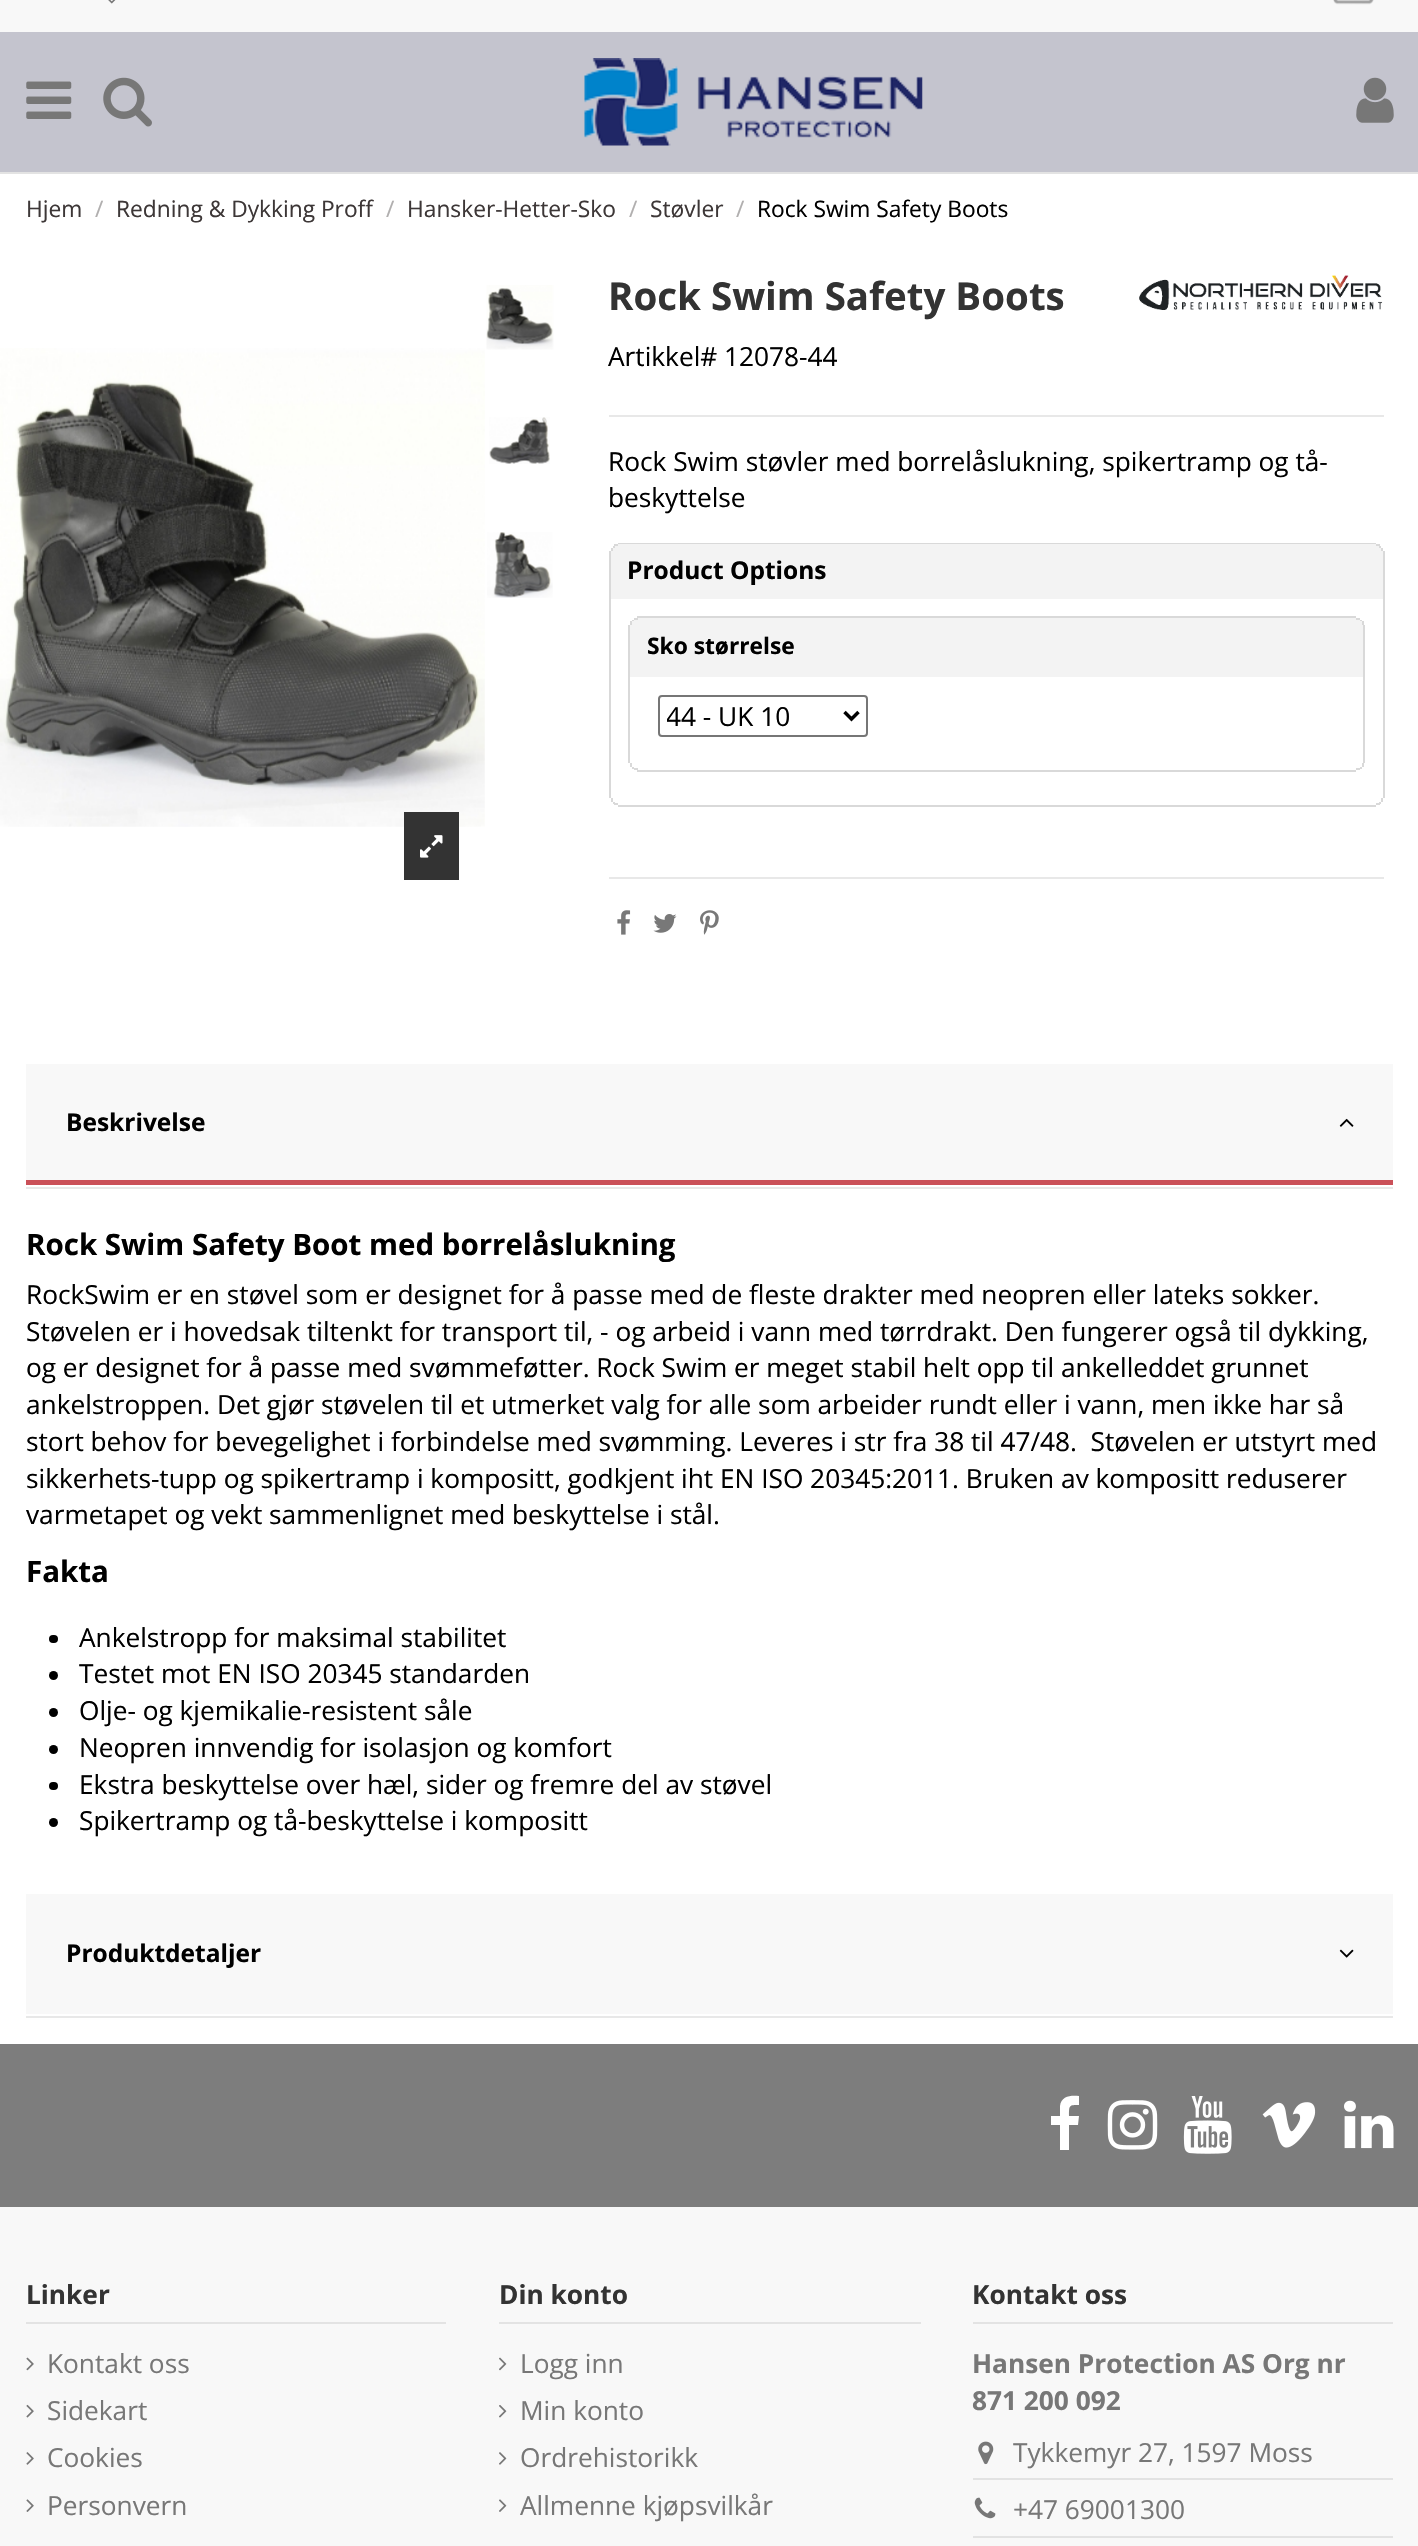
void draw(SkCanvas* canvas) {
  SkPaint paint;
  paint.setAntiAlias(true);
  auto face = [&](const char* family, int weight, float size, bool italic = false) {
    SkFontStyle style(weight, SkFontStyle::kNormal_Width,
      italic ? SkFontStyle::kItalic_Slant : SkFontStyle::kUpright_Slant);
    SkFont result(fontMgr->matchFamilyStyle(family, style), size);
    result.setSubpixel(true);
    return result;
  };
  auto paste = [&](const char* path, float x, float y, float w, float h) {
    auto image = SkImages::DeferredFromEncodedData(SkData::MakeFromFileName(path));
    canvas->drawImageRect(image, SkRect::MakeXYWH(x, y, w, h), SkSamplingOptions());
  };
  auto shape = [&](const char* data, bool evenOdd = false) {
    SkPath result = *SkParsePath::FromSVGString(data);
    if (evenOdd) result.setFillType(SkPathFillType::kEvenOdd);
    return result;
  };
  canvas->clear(0xffffffff);
  paint.setColor(0xfff8f8f8);
  canvas->drawRect(SkRect::MakeXYWH(0, 0, 1418, 32), paint);
  paste("img/1.png", 108, 0, 8, 4);
  paste("img/2.png", 1333, 0, 41, 5);
  paint.setColor(0xffe3e3e3);
  canvas->drawRect(SkRect::MakeXYWH(0, 172, 1418, 2), paint);
  paint.setColor(0xffc4c4ce);
  canvas->drawRect(SkRect::MakeXYWH(0, 32, 1418, 140), paint);
  paste("img/3.png", 26, 81, 46, 38);
  paste("img/4.png", 103, 77, 49, 50);
  paste("img/5.png", 584, 58, 339, 88);
  paste("img/6.png", 1356, 77, 38, 46);
  paste("img/7.png", 0, 348, 485, 479);
  paint.setColor(0xff333333);
  canvas->drawRect(SkRect::MakeXYWH(404, 812, 55, 68), paint);
  paste("img/8.png", 420, 835, 23, 23);
  paste("img/9.png", 486, 285, 68, 65);
  paste("img/10.png", 489, 417, 61, 47);
  paste("img/11.png", 487, 532, 66, 66);
  paint.setColor(0xffe8e8e8);
  canvas->drawRect(SkRect::MakeXYWH(609, 415, 775, 2), paint);
  paste("img/12.png", 1139, 275, 244, 35);
  {
    const struct { float x, y, w, h; SkColor color; } items[] = {
      {618, 543, 758, 1, 0xffd9d9d9},
      {614, 544, 765, 2, 0xfff3f3f3},
      {1376, 544, 4, 2, 0xffd9d9d9},
      {614, 544, 4, 2, 0xffd9d9d9},
      {613, 546, 768, 2, 0xfff3f3f3},
      {1379, 546, 2, 2, 0xffd9d9d9},
      {613, 546, 2, 2, 0xffd9d9d9},
      {611, 548, 772, 3, 0xfff3f3f3},
      {1381, 548, 2, 4, 0xffd9d9d9},
      {611, 548, 2, 4, 0xffd9d9d9},
      {611, 551, 772, 48, 0xfff3f3f3},
      {1383, 551, 2, 247, 0xffd9d9d9},
      {609, 551, 2, 247, 0xffd9d9d9},
      {637, 616, 719, 2, 0xffd9d9d9},
      {634, 618, 726, 2, 0xfff3f3f3},
      {1356, 618, 4, 2, 0xffd9d9d9},
      {634, 618, 4, 2, 0xffd9d9d9},
      {632, 620, 730, 1, 0xfff3f3f3},
      {1360, 620, 2, 1, 0xffd9d9d9},
      {632, 620, 2, 1, 0xffd9d9d9},
      {630, 621, 733, 56, 0xfff3f3f3},
      {1362, 621, 2, 4, 0xffd9d9d9},
      {630, 621, 2, 4, 0xffd9d9d9},
      {1363, 625, 2, 138, 0xffd9d9d9},
      {628, 625, 2, 138, 0xffd9d9d9},
    };
    for (auto [x, y, w, h, color] : items) {
      paint.setColor(color);
      canvas->drawRect(SkRect::MakeXYWH(x, y, w, h), paint);
    }
  }
  paint.setStroke(true);
  paint.setStrokeWidth(2);
  paint.setColor(0xff767676);
  canvas->drawRoundRect(SkRect::MakeXYWH(659, 696, 208, 40), 3, 3, paint);
  paint.setStrokeWidth(3.5f);
  paint.setColor(0xff000000);
  canvas->drawPath(shape("M844.5 712L851.5 719L858.5 712"), paint);
  paint.setStroke(false);
  {
    const struct { float x, y, w, h; SkColor color; } items[] = {
      {1362, 763, 2, 4, 0xffd9d9d9},
      {630, 763, 2, 4, 0xffd9d9d9},
      {1360, 767, 2, 2, 0xffd9d9d9},
      {632, 767, 2, 2, 0xffd9d9d9},
      {1356, 768, 4, 2, 0xffd9d9d9},
      {634, 768, 4, 2, 0xffd9d9d9},
      {637, 770, 719, 2, 0xffd9d9d9},
      {1381, 798, 2, 4, 0xffd9d9d9},
      {611, 798, 2, 4, 0xffd9d9d9},
      {1379, 802, 2, 2, 0xffd9d9d9},
      {613, 802, 2, 2, 0xffd9d9d9},
      {614, 803, 1, 1, 0xffffffff},
      {1376, 803, 4, 2, 0xffd9d9d9},
      {614, 803, 4, 2, 0xffd9d9d9},
      {618, 805, 758, 2, 0xffd9d9d9},
      {609, 877, 775, 2, 0xffe8e8e8},
    };
    for (auto [x, y, w, h, color] : items) {
      paint.setColor(color);
      canvas->drawRect(SkRect::MakeXYWH(x, y, w, h), paint);
    }
  }
  paste("img/13.png", 617, 910, 14, 25);
  paste("img/14.png", 653, 914, 24, 19);
  paste("img/15.png", 700, 910, 19, 25);
  {
    const struct { float x, y, w, h; SkColor color; } items[] = {
      {26, 1187, 1367, 2, 0xffe8e8e8},
      {26, 1064, 1367, 116, 0xfff8f8f8},
      {26, 1180, 1367, 5, 0xffca5058},
    };
    for (auto [x, y, w, h, color] : items) {
      paint.setColor(color);
      canvas->drawRect(SkRect::MakeXYWH(x, y, w, h), paint);
    }
  }
  paste("img/16.png", 1339, 1118, 15, 9);
  paint.setColor(0xff000000);
  canvas->drawRoundRect(SkRect::MakeXYWH(49, 1635, 9, 8), 4, 4, paint);
  canvas->drawCircle(53.5f, 1675.5f, 4.5f, paint);
  canvas->drawCircle(53.5f, 1712.5f, 4.5f, paint);
  canvas->drawCircle(53.5f, 1749.5f, 4.5f, paint);
  canvas->drawRoundRect(SkRect::MakeXYWH(49, 1782, 9, 8), 4, 4, paint);
  canvas->drawCircle(53.5f, 1822.5f, 4.5f, paint);
  paint.setColor(0xffe8e8e8);
  canvas->drawRect(SkRect::MakeXYWH(26, 2016, 1367, 2), paint);
  paint.setColor(0xfff8f8f8);
  canvas->drawRect(SkRect::MakeXYWH(26, 1894, 1367, 120), paint);
  paste("img/17.png", 1339, 1949, 15, 9);
  canvas->drawRect(SkRect::MakeXYWH(0, 2207, 1418, 339), paint);
  paint.setColor(0xff7d7d7d);
  canvas->drawRect(SkRect::MakeXYWH(0, 2044, 1418, 163), paint);
  paint.setColor(0xffffffff);
  canvas->drawPath(shape("M1079 2096V2105C1069 2105 1069 2105 1069 2116H1079L1078 2125H1069V2150H1060V2125H1051V2116H1060V2106C1061 2096 1071 2095 1079 2096Z"), paint);
  paste("img/18.png", 1107, 2100, 51, 50);
  paste("img/19.png", 1183, 2096, 49, 58);
  paste("img/20.png", 1262, 2102, 54, 46);
  paste("img/21.png", 1344, 2100, 50, 49);
  paint.setColor(0xffe3e3e3);
  canvas->drawRect(SkRect::MakeXYWH(26, 2322, 420, 2), paint);
  paste("img/22.png", 26, 2357, 8, 14);
  paste("img/23.png", 26, 2404, 8, 14);
  paste("img/24.png", 26, 2452, 8, 13);
  paste("img/25.png", 26, 2499, 8, 13);
  canvas->drawRect(SkRect::MakeXYWH(499, 2322, 422, 2), paint);
  paste("img/26.png", 499, 2357, 8, 14);
  paste("img/27.png", 499, 2405, 8, 13);
  paste("img/28.png", 499, 2452, 8, 13);
  paste("img/29.png", 499, 2499, 8, 13);
  canvas->drawRect(SkRect::MakeXYWH(973, 2322, 420, 2), paint);
  paste("img/30.png", 978, 2441, 16, 24);
  paint.setColor(0xffe2e2e2);
  canvas->drawRect(SkRect::MakeXYWH(973, 2478, 420, 2), paint);
  paste("img/31.png", 974, 2497, 22, 22);
  canvas->drawRect(SkRect::MakeXYWH(973, 2536, 420, 2), paint);
  auto f0 = face("Open Sans", 400, 22.75f);
  paint.setColor(0xff3d3737);
  canvas->drawString("Hjem", 26, 217, f0, paint);
  paint.setColor(0xffb1afaf);
  canvas->drawString("/", 95, 217, f0, paint);
  paint.setColor(0xff3d3737);
  canvas->drawString("Redning & Dykking Proff", 116, 217, f0, paint);
  paint.setColor(0xffb1afaf);
  canvas->drawString("/", 386, 217, f0, paint);
  paint.setColor(0xff3d3737);
  canvas->drawString("Hansker-Hetter-Sko", 407, 217, f0, paint);
  paint.setColor(0xffb1afaf);
  canvas->drawString("/", 629, 217, f0, paint);
  paint.setColor(0xff3d3737);
  canvas->drawString("Støvler", 650, 217, f0, paint);
  paint.setColor(0xffb1afaf);
  canvas->drawString("/", 736, 217, f0, paint);
  paint.setColor(0xff000000);
  canvas->drawString("Rock Swim Safety Boots", 757, 217, f0, paint);
  auto f1 = face("Open Sans", 700, 38.5f);
  paint.setColor(0xff333333);
  canvas->drawString("Rock Swim Safety Boots", 608, 310, f1, paint);
  auto f2 = face("Open Sans", 400, 26.25f);
  paint.setColor(0xff000000);
  {
    const struct { const char* s; float x, y; } items[] = {
      {"Artikkel# 12078-44", 608, 366},
      {"Rock Swim støvler med borrelåslukning, spikertramp og tå-", 608, 471},
      {"beskyttelse", 608, 507},
    };
    for (auto [s, x, y] : items) {
      canvas->drawString(s, x, y, f2, paint);
    }
  }
  auto f3 = face("Open Sans", 700, 24.5f);
  canvas->drawString("Product Options", 627, 579, f3, paint);
  auto f4 = face("Open Sans", 700, 22.75f);
  canvas->drawString("Sko størrelse", 647, 654, f4, paint);
  canvas->save();
  canvas->clipRect(SkRect::MakeXYWH(667, 697, 171, 38));
  canvas->drawString("44 - UK 10", 666, 726, f2, paint);
  canvas->restore();
  canvas->drawString("Beskrivelse", 66, 1131, f3, paint);
  auto f5 = face("Open Sans", 700, 29.5f);
  canvas->drawString("Rock Swim Safety Boot med borrelåslukning", 26, 1255, f5, paint);
  {
    const struct { const char* s; float x, y; } items[] = {
      {"RockSwim er en støvel som er designet for å passe med de fleste drakter med neopren eller lateks sokker.", 26, 1304},
      {"Støvelen er i hovedsak tiltenkt for transport til, - og arbeid i vann med tørrdrakt. Den fungerer også til dykking,", 26, 1341},
      {"og er designet for å passe med svømmeføtter. Rock Swim er meget stabil helt opp til ankelleddet grunnet", 26, 1377},
      {"ankelstroppen. Det gjør støvelen til et utmerket valg for alle som arbeider rundt eller i vann, men ikke har så", 26, 1414},
      {"stort behov for bevegelighet i forbindelse med svømming. Leveres i str fra 38 til 47/48.  Støvelen er utstyrt med", 26, 1451},
      {"sikkerhets-tupp og spikertramp i kompositt, godkjent iht EN ISO 20345:2011. Bruken av kompositt reduserer", 26, 1488},
      {"varmetapet og vekt sammenlignet med beskyttelse i stål.", 26, 1524},
    };
    for (auto [s, x, y] : items) {
      canvas->drawString(s, x, y, f2, paint);
    }
  }
  canvas->drawString("Fakta", 26, 1582, f5, paint);
  {
    const struct { const char* s; float x, y; } items[] = {
      {"Ankelstropp for maksimal stabilitet", 79, 1647},
      {"Testet mot EN ISO 20345 standarden", 79, 1683},
      {"Olje- og kjemikalie-resistent såle", 79, 1720},
      {"Neopren innvendig for isolasjon og komfort", 79, 1757},
      {"Ekstra beskyttelse over hæl, sider og fremre del av støvel", 79, 1794},
      {"Spikertramp og tå-beskyttelse i kompositt", 79, 1830},
    };
    for (auto [s, x, y] : items) {
      canvas->drawString(s, x, y, f2, paint);
    }
  }
  canvas->drawString("Produktdetaljer", 66, 1962, f3, paint);
  auto f6 = face("Open Sans", 700, 26.25f);
  paint.setColor(0xff333333);
  canvas->drawString("Linker", 26, 2304, f6, paint);
  paint.setColor(0xff777777);
  {
    const struct { const char* s; float x, y; } items[] = {
      {"Kontakt oss", 47, 2373},
      {"Sidekart", 47, 2420},
      {"Cookies", 47, 2467},
      {"Personvern", 47, 2515},
    };
    for (auto [s, x, y] : items) {
      canvas->drawString(s, x, y, f2, paint);
    }
  }
  paint.setColor(0xff333333);
  canvas->drawString("Din konto", 499, 2304, f6, paint);
  paint.setColor(0xff777777);
  {
    const struct { const char* s; float x, y; } items[] = {
      {"Logg inn", 520, 2373},
      {"Min konto", 520, 2420},
      {"Ordrehistorikk", 520, 2467},
      {"Allmenne kjøpsvilkår", 520, 2515},
    };
    for (auto [s, x, y] : items) {
      canvas->drawString(s, x, y, f2, paint);
    }
  }
  paint.setColor(0xff333333);
  canvas->drawString("Kontakt oss", 972, 2304, f6, paint);
  paint.setColor(0xff777777);
  canvas->drawString("Hansen Protection AS Org nr", 972, 2373, f6, paint);
  canvas->drawString("871 200 092", 972, 2410, f6, paint);
  canvas->drawString("Tykkemyr 27, 1597 Moss", 1013, 2462, f2, paint);
  canvas->drawString("+47 69001300", 1013, 2519, f2, paint);
}
